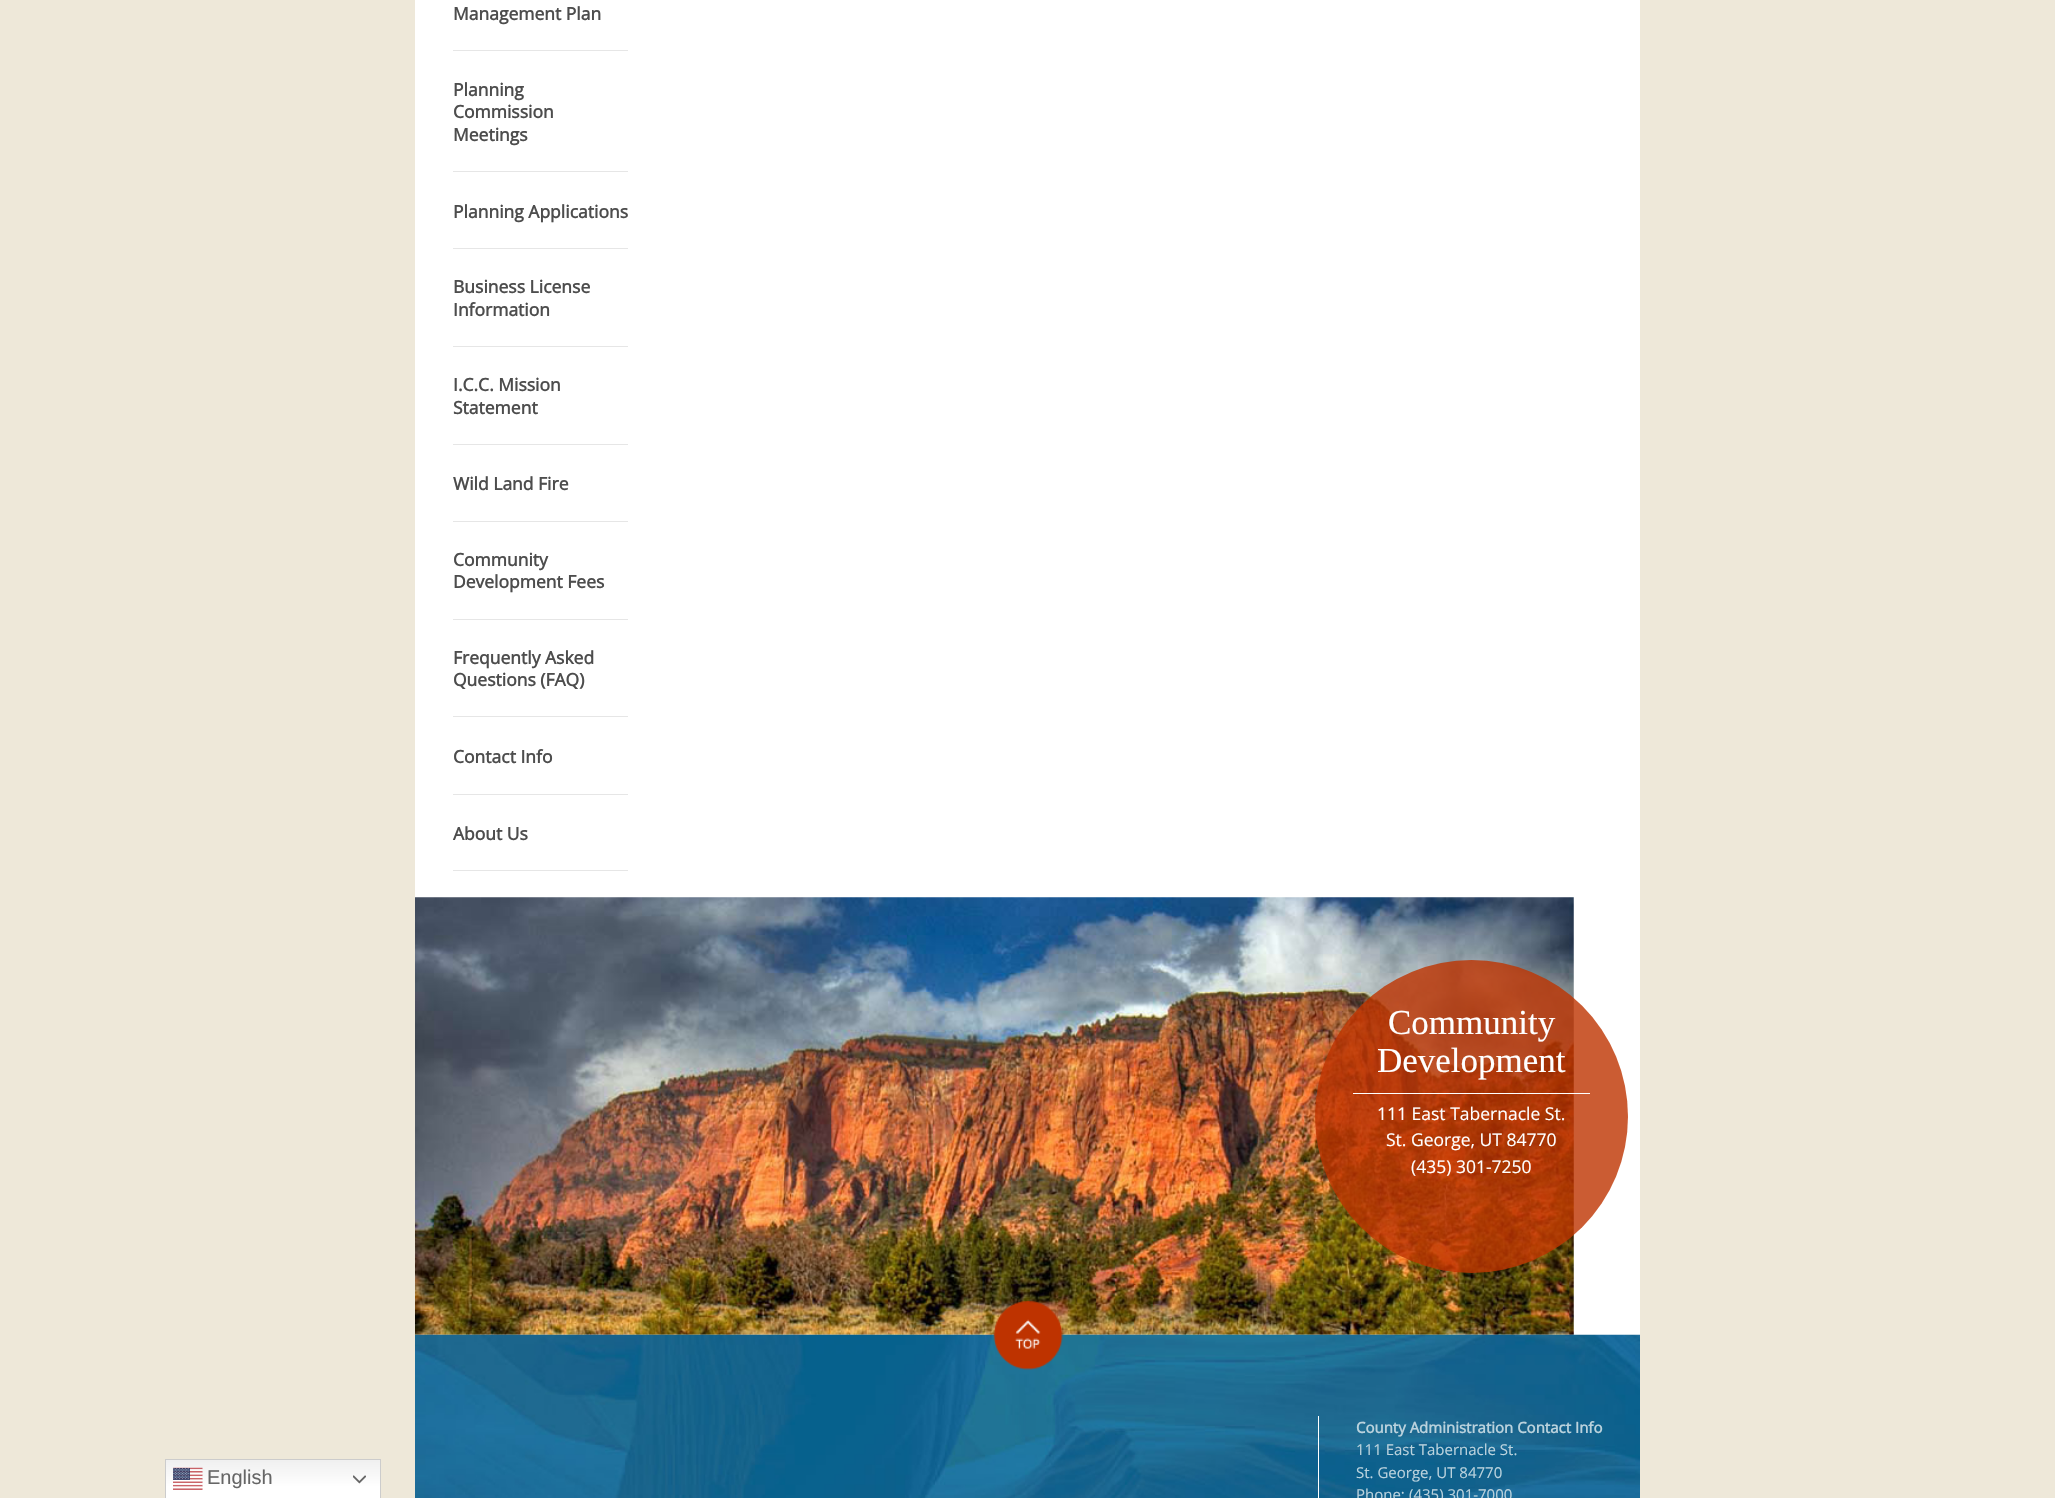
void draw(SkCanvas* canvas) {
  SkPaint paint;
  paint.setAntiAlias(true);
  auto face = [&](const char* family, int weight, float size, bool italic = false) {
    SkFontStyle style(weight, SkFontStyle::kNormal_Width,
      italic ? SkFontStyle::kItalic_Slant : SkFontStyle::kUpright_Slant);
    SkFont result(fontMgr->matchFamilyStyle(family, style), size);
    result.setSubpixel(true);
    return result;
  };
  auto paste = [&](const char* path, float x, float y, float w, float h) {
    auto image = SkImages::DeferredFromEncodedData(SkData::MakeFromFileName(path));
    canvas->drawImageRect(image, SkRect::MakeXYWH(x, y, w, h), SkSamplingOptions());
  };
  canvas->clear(0xffeee8d9);
  {
    const SkColor colors[] = {0xffefefef, 0xffffffff};
    const float stops[] = {0, 0.7f};
    const SkPoint ends[] = {{273, 1459}, {273, 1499}};
    paint.setShader(SkGradientShader::MakeLinear(ends, colors, stops, 2, SkTileMode::kClamp));
    paint.setAlpha(255);
  }
  canvas->drawRect(SkRect::MakeXYWH(166, 1460, 214, 38), paint);
  paint.setStroke(true);
  paint.setStrokeWidth(1);
  paint.setShader(nullptr);
  paint.setColor(0xffcccccc);
  canvas->drawRect(SkRect::MakeXYWH(165.5f, 1459.5f, 215, 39), paint);
  paste("img/1.png", 173, 1467, 30, 23);
  paste("img/2.png", 353, 1475, 13, 9);
  paint.setStroke(false);
  {
    const struct { float x, y, w, h; SkColor color; } items[] = {
      {415, 0, 1225, 1335, 0xffffffff},
      {453, 50, 175, 1, 0xffe6e6e6},
      {453, 171, 175, 1, 0xffe6e6e6},
      {453, 248, 175, 1, 0xffe6e6e6},
      {453, 346, 175, 1, 0xffe6e6e6},
      {453, 444, 175, 1, 0xffe6e6e6},
      {453, 521, 175, 1, 0xffe6e6e6},
      {453, 619, 175, 1, 0xffe6e6e6},
      {453, 716, 175, 1, 0xffe6e6e6},
      {453, 794, 175, 1, 0xffe6e6e6},
      {453, 870, 175, 1, 0xffe6e6e6},
    };
    for (auto [x, y, w, h, color] : items) {
      paint.setColor(color);
      canvas->drawRect(SkRect::MakeXYWH(x, y, w, h), paint);
    }
  }
  paste("img/3.png", 415, 897, 1159, 438);
  paint.setColor(0xccbe3300);
  canvas->drawCircle(1471.5f, 1116.5f, 156.5f, paint);
  paint.setColor(0xffffffff);
  canvas->drawRect(SkRect::MakeXYWH(1353, 1093, 237, 1), paint);
  paste("img/4.png", 415, 1334, 1225, 164);
  paste("img/5.png", 993, 1300, 70, 70);
  canvas->drawRect(SkRect::MakeXYWH(1318, 1416, 1, 82), paint);
  auto f0 = face("Liberation Sans", 400, 20);
  paint.setColor(0xff666666);
  canvas->drawString("English", 207, 1484, f0, paint);
  auto f1 = face("Open Sans", 700, 17.5f);
  paint.setColor(0xff4d4d4d);
  {
    const struct { const char* s; float x, y; } items[] = {
      {"Management Plan", 453, 20},
      {"Planning", 453, 96},
      {"Commission", 453, 118},
      {"Meetings", 453, 141},
      {"Planning Applications", 453, 218},
      {"Business License", 453, 293},
      {"Information", 453, 316},
      {"I.C.C. Mission", 453, 391},
      {"Statement", 453, 414},
      {"Wild Land Fire", 453, 490},
      {"Community", 453, 566},
      {"Development Fees", 453, 588},
      {"Frequently Asked", 453, 664},
      {"Questions (FAQ)", 453, 686},
      {"Contact Info", 453, 763},
      {"About Us", 453, 840},
    };
    for (auto [s, x, y] : items) {
      canvas->drawString(s, x, y, f1, paint);
    }
  }
  auto f2 = face("Liberation Serif", 400, 35);
  paint.setColor(0xffffffff);
  canvas->drawString("Community", 1388, 1034, f2, paint);
  canvas->drawString("Development", 1377, 1072, f2, paint);
  auto f3 = face("Open Sans", 400, 17.5f);
  {
    const struct { const char* s; float x, y; } items[] = {
      {"111 East Tabernacle St.", 1377, 1120},
      {"St. George, UT 84770", 1386, 1146},
      {"(435) 301-7250", 1411, 1173},
    };
    for (auto [s, x, y] : items) {
      canvas->drawString(s, x, y, f3, paint);
    }
  }
  auto f4 = face("Open Sans", 700, 15);
  paint.setColor(0xffbad2dd);
  canvas->drawString("County Administration Contact Info", 1356, 1433, f4, paint);
  auto f5 = face("Open Sans", 400, 15);
  {
    const struct { const char* s; float x, y; } items[] = {
      {"111 East Tabernacle St.", 1356, 1455},
      {"St. George, UT 84770", 1356, 1478},
      {"Phone:", 1356, 1500},
      {"(435) 301-7000", 1409, 1500},
    };
    for (auto [s, x, y] : items) {
      canvas->drawString(s, x, y, f5, paint);
    }
  }
}
